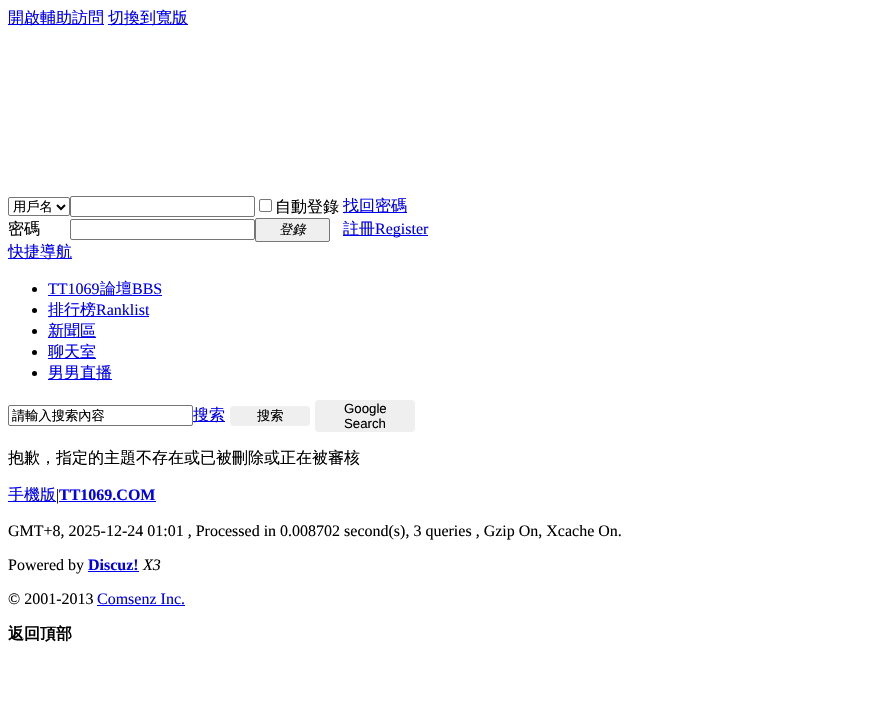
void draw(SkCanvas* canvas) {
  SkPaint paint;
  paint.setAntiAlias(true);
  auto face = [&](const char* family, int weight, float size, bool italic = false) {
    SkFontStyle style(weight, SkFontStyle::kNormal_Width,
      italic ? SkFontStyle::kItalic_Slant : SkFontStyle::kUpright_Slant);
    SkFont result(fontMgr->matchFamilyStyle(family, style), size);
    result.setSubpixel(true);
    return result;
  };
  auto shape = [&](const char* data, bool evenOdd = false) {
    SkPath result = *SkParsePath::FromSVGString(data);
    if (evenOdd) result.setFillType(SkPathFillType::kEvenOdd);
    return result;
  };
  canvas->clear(0xffffffff);
  paint.setColor(0xff0000ee);
  canvas->drawRect(SkRect::MakeXYWH(8, 24, 96, 1), paint);
  canvas->drawRect(SkRect::MakeXYWH(108, 24, 80, 1), paint);
  paint.setStroke(true);
  paint.setStrokeWidth(1);
  paint.setColor(0xff767676);
  canvas->drawRoundRect(SkRect::MakeXYWH(8.5f, 197.5f, 61, 18), 1.5f, 1.5f, paint);
  paint.setStrokeWidth(2);
  paint.setColor(0xff000000);
  canvas->drawPath(shape("M57 205L61 209L65 205"), paint);
  paint.setStrokeWidth(1);
  paint.setColor(0xff767676);
  canvas->drawRoundRect(SkRect::MakeXYWH(70.5f, 196.5f, 184, 20), 1.5f, 1.5f, paint);
  canvas->drawRoundRect(SkRect::MakeXYWH(259.5f, 199.5f, 12, 12), 1.5f, 1.5f, paint);
  paint.setStroke(false);
  paint.setColor(0xff0000ee);
  canvas->drawRect(SkRect::MakeXYWH(343, 212, 64, 1), paint);
  paint.setStroke(true);
  paint.setColor(0xff767676);
  canvas->drawRoundRect(SkRect::MakeXYWH(70.5f, 219.5f, 184, 20), 1.5f, 1.5f, paint);
  paint.setStroke(false);
  paint.setColor(0xffefefef);
  canvas->drawRoundRect(SkRect::MakeXYWH(255.5f, 218.5f, 74, 23), 1.5f, 1.5f, paint);
  paint.setStroke(true);
  paint.setColor(0xff767676);
  canvas->drawRoundRect(SkRect::MakeXYWH(255.5f, 218.5f, 74, 23), 1.5f, 1.5f, paint);
  paint.setStroke(false);
  paint.setColor(0xff0000ee);
  canvas->drawRect(SkRect::MakeXYWH(343, 235, 85, 1), paint);
  canvas->drawRect(SkRect::MakeXYWH(8, 258, 64, 1), paint);
  paint.setColor(0xff000000);
  canvas->drawCircle(34.5f, 289.5f, 2.5f, paint);
  paint.setColor(0xff0000ee);
  canvas->drawRect(SkRect::MakeXYWH(48, 295, 114, 1), paint);
  paint.setColor(0xff000000);
  canvas->drawCircle(34.5f, 310.5f, 2.5f, paint);
  paint.setColor(0xff0000ee);
  canvas->drawRect(SkRect::MakeXYWH(48, 316, 101, 1), paint);
  paint.setColor(0xff000000);
  canvas->drawCircle(34.5f, 331.5f, 2.5f, paint);
  paint.setColor(0xff0000ee);
  canvas->drawRect(SkRect::MakeXYWH(48, 337, 48, 1), paint);
  paint.setColor(0xff000000);
  canvas->drawCircle(34.5f, 352.5f, 2.5f, paint);
  paint.setColor(0xff0000ee);
  canvas->drawRect(SkRect::MakeXYWH(48, 358, 48, 1), paint);
  paint.setColor(0xff000000);
  canvas->drawCircle(34.5f, 373.5f, 2.5f, paint);
  paint.setColor(0xff0000ee);
  canvas->drawRect(SkRect::MakeXYWH(48, 379, 64, 1), paint);
  paint.setStroke(true);
  paint.setColor(0xff767676);
  canvas->drawRoundRect(SkRect::MakeXYWH(8.5f, 405.5f, 184, 20), 1.5f, 1.5f, paint);
  paint.setStroke(false);
  paint.setColor(0xff0000ee);
  canvas->drawRect(SkRect::MakeXYWH(193, 421, 32, 1), paint);
  paint.setColor(0xffefefef);
  canvas->drawRoundRect(SkRect::MakeXYWH(230, 406, 80, 20), 4, 4, paint);
  canvas->drawRoundRect(SkRect::MakeXYWH(315, 400, 100, 32), 4, 4, paint);
  {
    const struct { float x, y, w, h; SkColor color; } items[] = {
      {8, 501, 48, 1, 0xff0000ee},
      {59, 501, 97, 1, 0xff0000ee},
      {88, 571, 51, 1, 0xff0000ee},
      {97, 605, 88, 1, 0xff0000ee},
    };
    for (auto [x, y, w, h, color] : items) {
      paint.setColor(color);
      canvas->drawRect(SkRect::MakeXYWH(x, y, w, h), paint);
    }
  }
  auto f0 = face("WenQuanYi Zen Hei", 500, 16);
  canvas->drawString("開啟輔助訪問", 8, 23, f0, paint);
  canvas->drawString("切換到寬版", 108, 23, f0, paint);
  auto f1 = face("WenQuanYi Zen Hei", 500, 13.25f);
  paint.setColor(0xff000000);
  canvas->drawString("用戶名", 13, 211, f1, paint);
  canvas->drawString("自動登錄", 275, 212, f0, paint);
  paint.setColor(0xff0000ee);
  canvas->drawString("找回密碼", 343, 211, f0, paint);
  paint.setColor(0xff000000);
  canvas->drawString("密碼", 8, 234, f0, paint);
  auto f2 = face("WenQuanYi Zen Hei", 500, 13.25f, true);
  canvas->drawString("登錄", 279, 234, f2, paint);
  paint.setColor(0xff0000ee);
  canvas->drawString("註冊", 343, 234, f0, paint);
  auto f3 = face("Liberation Serif", 400, 16);
  canvas->drawString("Register", 375, 234, f3, paint);
  canvas->drawString("快捷導航", 8, 257, f0, paint);
  canvas->drawString("TT1069", 48, 294, f3, paint);
  canvas->drawString("論壇", 100, 294, f0, paint);
  canvas->drawString("BBS", 132, 294, f3, paint);
  canvas->drawString("排行榜", 48, 315, f0, paint);
  canvas->drawString("Ranklist", 96, 315, f3, paint);
  {
    const struct { const char* s; float x, y; } items[] = {
      {"新聞區", 48, 336},
      {"聊天室", 48, 357},
      {"男男直播", 48, 378},
    };
    for (auto [s, x, y] : items) {
      canvas->drawString(s, x, y, f0, paint);
    }
  }
  paint.setColor(0xff000000);
  canvas->drawString("請輸入搜索內容", 12, 420, f1, paint);
  paint.setColor(0xff0000ee);
  canvas->drawString("搜索", 193, 420, f0, paint);
  paint.setColor(0xff000000);
  canvas->drawString("搜索", 257, 420, f1, paint);
  auto f4 = face("Liberation Sans", 400, 13.25f);
  canvas->drawString("Google", 344, 413, f4, paint);
  canvas->drawString("Search", 344, 428, f4, paint);
  canvas->drawString("抱歉，指定的主題不存在或已被刪除或正在被審核", 8, 463, f0, paint);
  paint.setColor(0xff0000ee);
  canvas->drawString("手機版", 8, 500, f0, paint);
  paint.setColor(0xff000000);
  canvas->drawString("|", 56, 500, f3, paint);
  auto f5 = face("Liberation Serif", 700, 16);
  paint.setColor(0xff0000ee);
  canvas->drawString("TT1069.COM", 59, 500, f5, paint);
  paint.setColor(0xff000000);
  canvas->drawString("GMT+8, 2025-12-24 01:01 , Processed in 0.008702 second(s), 3 queries , Gzip On, Xcache On.", 8, 536, f3, paint);
  canvas->drawString("Powered by", 8, 570, f3, paint);
  paint.setColor(0xff0000ee);
  canvas->drawString("Discuz!", 88, 570, f5, paint);
  auto f6 = face("Liberation Serif", 400, 16, true);
  paint.setColor(0xff000000);
  canvas->drawString("X3", 143, 570, f6, paint);
  canvas->drawString("© 2001-2013", 8, 604, f3, paint);
  paint.setColor(0xff0000ee);
  canvas->drawString("Comsenz Inc.", 97, 604, f3, paint);
  auto f7 = face("WenQuanYi Zen Hei", 700, 16);
  paint.setColor(0xff000000);
  canvas->drawString("返回頂部", 8, 639, f7, paint);
}
